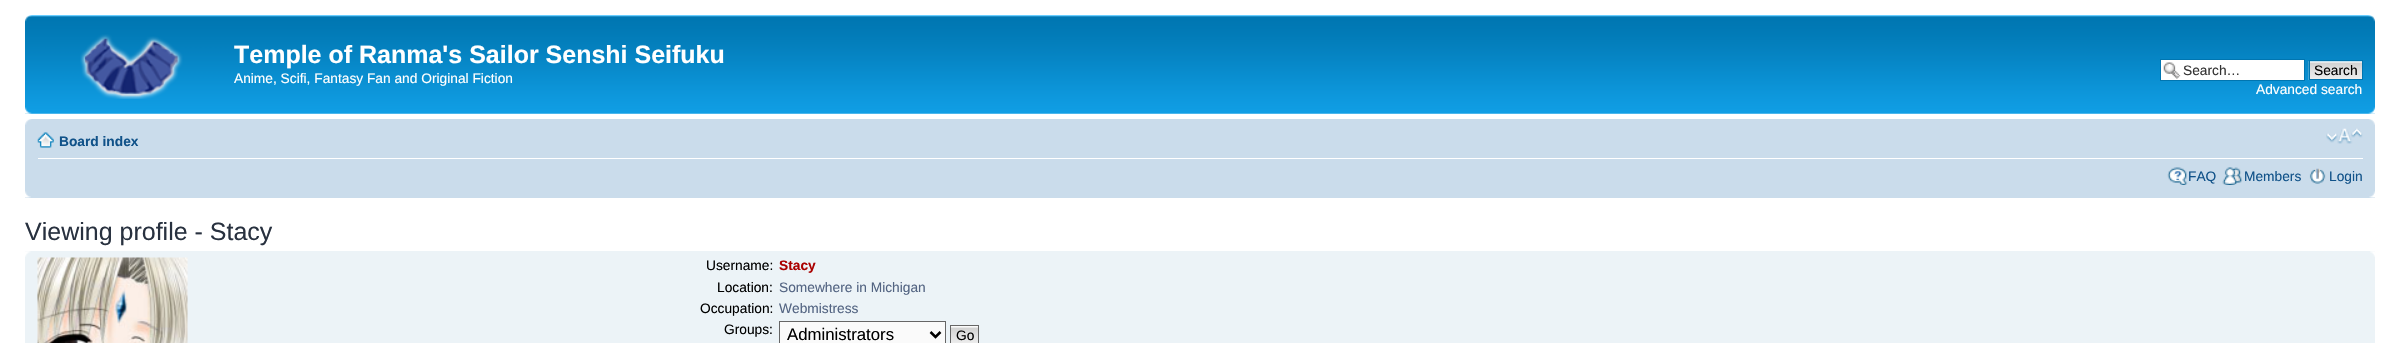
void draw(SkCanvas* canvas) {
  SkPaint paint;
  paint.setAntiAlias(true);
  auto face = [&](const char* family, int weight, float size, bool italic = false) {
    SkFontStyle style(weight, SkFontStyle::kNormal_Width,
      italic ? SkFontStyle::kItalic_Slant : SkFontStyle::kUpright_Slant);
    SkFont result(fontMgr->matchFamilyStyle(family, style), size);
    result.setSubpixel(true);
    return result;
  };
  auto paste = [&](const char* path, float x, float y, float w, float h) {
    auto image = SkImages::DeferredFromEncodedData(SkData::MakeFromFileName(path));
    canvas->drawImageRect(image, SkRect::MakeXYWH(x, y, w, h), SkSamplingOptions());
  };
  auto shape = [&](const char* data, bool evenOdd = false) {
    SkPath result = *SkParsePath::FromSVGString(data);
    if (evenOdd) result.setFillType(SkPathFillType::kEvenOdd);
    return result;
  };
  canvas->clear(0xffffffff);
  paste("img/1.png", 25, 15, 2350, 99);
  paste("img/2.png", 25, 15, 7, 7);
  paste("img/3.png", 2368, 15, 7, 7);
  paste("img/4.png", 80, 34, 103, 65);
  paint.setColor(0xffffffff);
  canvas->drawRect(SkRect::MakeXYWH(2161, 60, 143, 20), paint);
  paste("img/5.png", 2163, 62, 18, 17);
  paint.setStroke(true);
  paint.setStrokeWidth(1);
  paint.setColor(0xff0075b0);
  canvas->drawRect(SkRect::MakeXYWH(2160.5f, 59.5f, 144, 21), paint);
  paste("img/6.png", 2308, 61, 54, 19);
  canvas->drawRect(SkRect::MakeXYWH(2309.5f, 60.5f, 53, 19), paint);
  paste("img/7.png", 25, 107, 7, 7);
  paste("img/8.png", 2368, 107, 7, 7);
  paint.setStroke(false);
  paint.setColor(0xffcadceb);
  canvas->drawRect(SkRect::MakeXYWH(25, 119, 2350, 79), paint);
  paste("img/9.png", 25, 119, 7, 6);
  paste("img/10.png", 2369, 119, 6, 6);
  paint.setColor(0xffffffff);
  canvas->drawRect(SkRect::MakeXYWH(38, 158, 2325, 1), paint);
  paste("img/11.png", 37, 132, 17, 16);
  paste("img/12.png", 2326, 128, 37, 16);
  paste("img/13.png", 2167, 167, 21, 18);
  paste("img/14.png", 2222, 167, 21, 18);
  paste("img/15.png", 2309, 168, 17, 16);
  paste("img/16.png", 25, 191, 6, 7);
  paste("img/17.png", 2369, 191, 6, 7);
  paint.setColor(0xffecf3f7);
  canvas->drawRect(SkRect::MakeXYWH(25, 251, 2350, 92), paint);
  paste("img/18.png", 25, 251, 6, 6);
  paste("img/19.png", 2370, 251, 5, 6);
  paste("img/20.png", 37, 257, 151, 86);
  paint.setColor(0xfffafafa);
  canvas->drawRect(SkRect::MakeXYWH(779.5f, 321.5f, 166, 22), paint);
  paint.setStroke(true);
  paint.setColor(0xff666666);
  canvas->drawRect(SkRect::MakeXYWH(779.5f, 321.5f, 166, 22), paint);
  paint.setStrokeWidth(2.5f);
  paint.setColor(0xff000000);
  canvas->drawPath(shape("M930.5 332L935.5 337L940.5 332"), paint);
  paint.setStroke(false);
  paint.setColor(0xfffafafa);
  canvas->drawRect(SkRect::MakeXYWH(951, 326, 27, 1), paint);
  paste("img/21.png", 951, 327, 27, 16);
  paint.setStroke(true);
  paint.setStrokeWidth(1);
  paint.setColor(0xff666666);
  canvas->drawRect(SkRect::MakeXYWH(950.5f, 325.5f, 28, 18), paint);
  auto f0 = face("Liberation Sans", 700, 25);
  paint.setStroke(false);
  paint.setColor(0xffffffff);
  canvas->drawString("Temple of Ranma's Sailor Senshi Seifuku", 234, 63, f0, paint);
  auto f1 = face("Liberation Sans", 400, 13.75f);
  canvas->drawString("Anime, Scifi, Fantasy Fan and Original Fiction", 234, 83, f1, paint);
  paint.setColor(0xff333333);
  canvas->drawString("Search…", 2183, 75, f1, paint);
  paint.setColor(0xff000000);
  canvas->drawString("Search", 2314, 75, f1, paint);
  paint.setColor(0xffffffff);
  canvas->drawString("Advanced search", 2256, 94, f1, paint);
  auto f2 = face("Liberation Sans", 700, 13.75f);
  paint.setColor(0xff105289);
  canvas->drawString("Board index", 59, 146, f2, paint);
  {
    const struct { const char* s; float x, y; } items[] = {
      {"FAQ", 2188, 181},
      {"Members", 2244, 181},
      {"Login", 2329, 181},
    };
    for (auto [s, x, y] : items) {
      canvas->drawString(s, x, y, f1, paint);
    }
  }
  auto f3 = face("Liberation Sans", 400, 25);
  paint.setColor(0xff28313f);
  canvas->drawString("Viewing profile - Stacy", 25, 240, f3, paint);
  paint.setColor(0xff000000);
  canvas->drawString("Username:", 706, 270, f1, paint);
  paint.setColor(0xffaa0000);
  canvas->drawString("Stacy", 779, 270, f2, paint);
  paint.setColor(0xff000000);
  canvas->drawString("Location:", 717, 292, f1, paint);
  paint.setColor(0xff536482);
  canvas->drawString("Somewhere in Michigan", 779, 292, f1, paint);
  paint.setColor(0xff000000);
  canvas->drawString("Occupation:", 700, 313, f1, paint);
  paint.setColor(0xff536482);
  canvas->drawString("Webmistress", 779, 313, f1, paint);
  paint.setColor(0xff000000);
  canvas->drawString("Groups:", 724, 334, f1, paint);
  auto f4 = face("Liberation Sans", 400, 16.75f);
  canvas->drawString("Administrators", 787, 340, f4, paint);
  canvas->drawString("Go", 956, 340, f1, paint);
}
